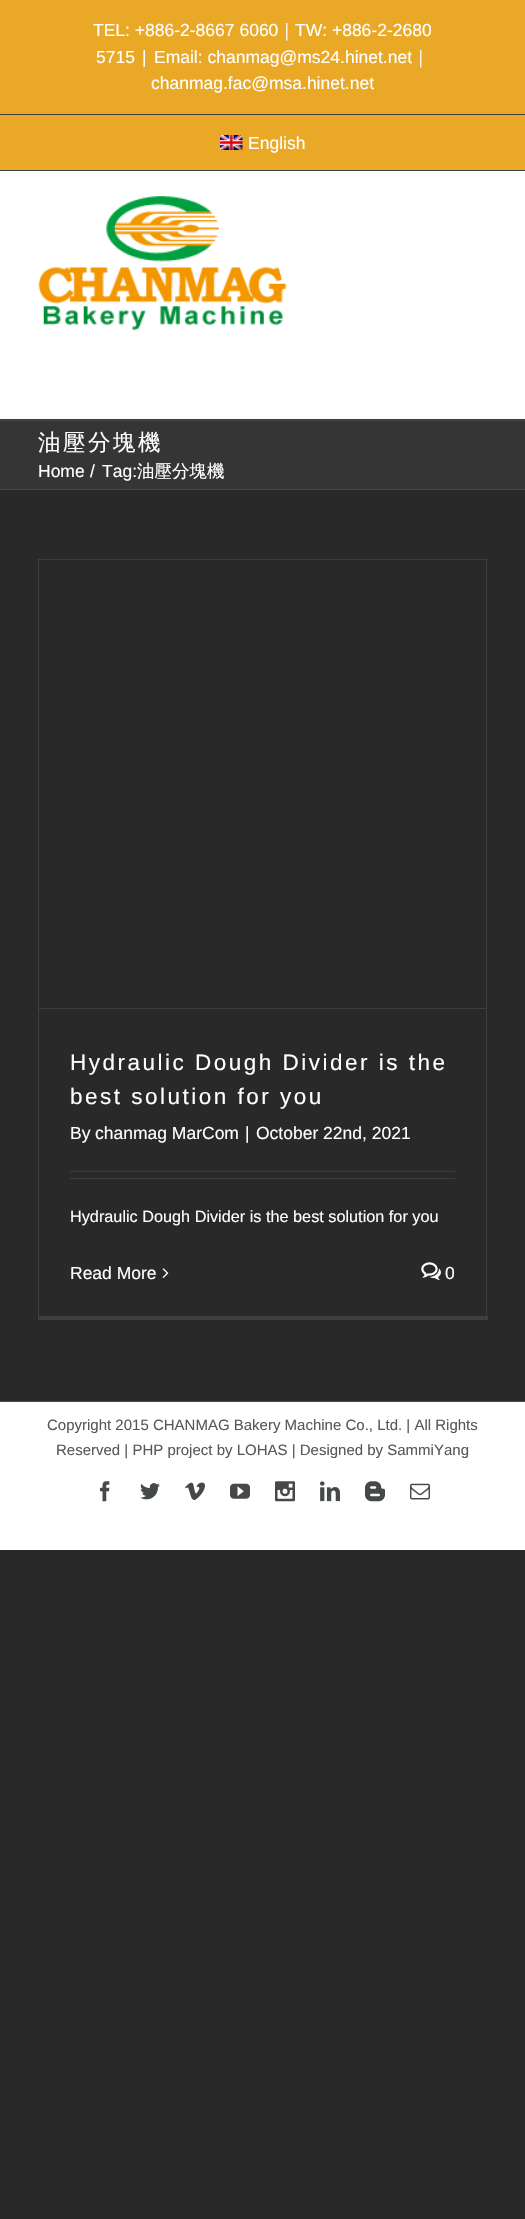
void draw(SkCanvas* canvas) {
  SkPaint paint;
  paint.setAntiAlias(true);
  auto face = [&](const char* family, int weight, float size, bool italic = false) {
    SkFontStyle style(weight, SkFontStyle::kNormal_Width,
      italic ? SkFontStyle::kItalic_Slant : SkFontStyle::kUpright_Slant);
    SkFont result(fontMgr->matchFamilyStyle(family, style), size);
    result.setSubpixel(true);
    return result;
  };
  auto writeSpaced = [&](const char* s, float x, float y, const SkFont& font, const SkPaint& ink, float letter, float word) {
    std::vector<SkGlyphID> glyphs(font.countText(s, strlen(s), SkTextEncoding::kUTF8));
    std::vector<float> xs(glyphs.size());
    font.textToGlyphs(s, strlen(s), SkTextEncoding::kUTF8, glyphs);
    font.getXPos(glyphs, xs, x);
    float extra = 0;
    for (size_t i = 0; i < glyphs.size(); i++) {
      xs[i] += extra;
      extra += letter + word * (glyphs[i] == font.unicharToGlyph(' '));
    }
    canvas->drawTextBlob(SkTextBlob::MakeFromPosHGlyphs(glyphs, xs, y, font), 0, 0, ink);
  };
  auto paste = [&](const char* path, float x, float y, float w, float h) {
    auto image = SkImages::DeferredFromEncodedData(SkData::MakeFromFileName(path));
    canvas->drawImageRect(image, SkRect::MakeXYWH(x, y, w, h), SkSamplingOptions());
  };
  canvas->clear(0xff29292a);
  {
    const struct { float x, y, w, h; SkColor color; } items[] = {
      {0, 0, 525, 170, 0xffe9a825},
      {0, 170, 525, 1, 0xff3e3e3e},
      {0, 114, 525, 1, 0xff3e3e3e},
    };
    for (auto [x, y, w, h, color] : items) {
      paint.setColor(color);
      canvas->drawRect(SkRect::MakeXYWH(x, y, w, h), paint);
    }
  }
  paste("img/1.png", 220, 135, 23, 15);
  paint.setColor(0xffffffff);
  canvas->drawRect(SkRect::MakeXYWH(0, 171, 525, 248), paint);
  paint.setColor(0xff3e3e3e);
  canvas->drawRect(SkRect::MakeXYWH(0, 419, 525, 1), paint);
  paste("img/2.png", 38, 196, 249, 135);
  {
    const struct { float x, y, w, h; SkColor color; } items[] = {
      {0, 421, 525, 68, 0xff353535},
      {0, 420, 525, 1, 0xff464646},
      {0, 489, 525, 1, 0xff464646},
      {38, 559, 450, 1, 0xff3e3e3e},
      {486, 559, 1, 761, 0xff3e3e3e},
      {38, 1316, 450, 4, 0xff3e3e3e},
      {38, 559, 1, 761, 0xff3e3e3e},
      {39, 1008, 447, 1, 0xff3e3e3e},
      {70, 1171, 385, 1, 0xff3e3e3e},
      {70, 1178, 385, 1, 0xff3e3e3e},
    };
    for (auto [x, y, w, h, color] : items) {
      paint.setColor(color);
      canvas->drawRect(SkRect::MakeXYWH(x, y, w, h), paint);
    }
  }
  paste("img/3.png", 162, 1268, 7, 10);
  paste("img/4.png", 421, 1262, 20, 18);
  paint.setColor(0xffffffff);
  canvas->drawRect(SkRect::MakeXYWH(0, 1402, 525, 148), paint);
  paint.setColor(0xff4b4c4d);
  canvas->drawRect(SkRect::MakeXYWH(0, 1401, 525, 1), paint);
  paste("img/5.png", 100, 1481, 10, 21);
  paste("img/6.png", 140, 1483, 20, 17);
  paste("img/7.png", 185, 1482, 20, 18);
  paste("img/8.png", 230, 1483, 20, 16);
  paste("img/9.png", 275, 1481, 20, 21);
  paste("img/10.png", 320, 1481, 20, 21);
  paste("img/11.png", 365, 1481, 20, 21);
  paste("img/12.png", 410, 1483, 20, 17);
  auto f0 = face("Liberation Sans", 400, 17.5f);
  paint.setColor(0xffffffff);
  canvas->drawString("TEL: +886-2-8667 6060", 93, 36, f0, paint);
  auto f1 = face("WenQuanYi Zen Hei", 500, 17.5f);
  canvas->drawString("｜", 278, 36, f1, paint);
  {
    const struct { const char* s; float x, y; } items[] = {
      {"TW: +886-2-2680", 295, 36},
      {"5715", 96, 63},
      {"|", 142, 63},
      {"Email: chanmag@ms24.hinet.net", 154, 63},
    };
    for (auto [s, x, y] : items) {
      canvas->drawString(s, x, y, f0, paint);
    }
  }
  canvas->drawString("｜", 412, 63, f1, paint);
  canvas->drawString("chanmag.fac@msa.hinet.net", 151, 89, f0, paint);
  canvas->drawString("English", 248, 149, f0, paint);
  auto f2 = face("WenQuanYi Zen Hei", 500, 22.5f);
  writeSpaced("油壓分塊機", 38, 450, f2, paint, 2.5f, 0);
  {
    const struct { const char* s; float x, y; } items[] = {
      {"Home", 38, 477},
      {"/", 90, 477},
      {"Tag:", 102, 477},
    };
    for (auto [s, x, y] : items) {
      canvas->drawString(s, x, y, f0, paint);
    }
  }
  canvas->drawString("油壓分塊機", 137, 477, f1, paint);
  auto f3 = face("Liberation Sans", 400, 22.5f);
  writeSpaced("Hydraulic Dough Divider is the", 70, 1070, f3, paint, 2.5f, 0);
  writeSpaced("best solution for you", 70, 1104, f3, paint, 2.5f, 0);
  {
    const struct { const char* s; float x, y; } items[] = {
      {"By", 70, 1139},
      {"chanmag MarCom", 95, 1139},
      {"|", 245, 1139},
      {"October 22nd, 2021", 256, 1139},
    };
    for (auto [s, x, y] : items) {
      canvas->drawString(s, x, y, f0, paint);
    }
  }
  auto f4 = face("Liberation Sans", 400, 16.25f);
  canvas->drawString("Hydraulic Dough Divider is the best solution for you", 70, 1222, f4, paint);
  canvas->drawString("Read More", 70, 1279, f0, paint);
  canvas->drawString("0", 445, 1279, f0, paint);
  auto f5 = face("Liberation Sans", 400, 15);
  paint.setColor(0xff595757);
  canvas->drawString("Copyright 2015 CHANMAG Bakery Machine Co., Ltd. | All Rights", 47, 1430, f5, paint);
  canvas->drawString("Reserved | PHP project by LOHAS | Designed by SammiYang", 56, 1455, f5, paint);
}
